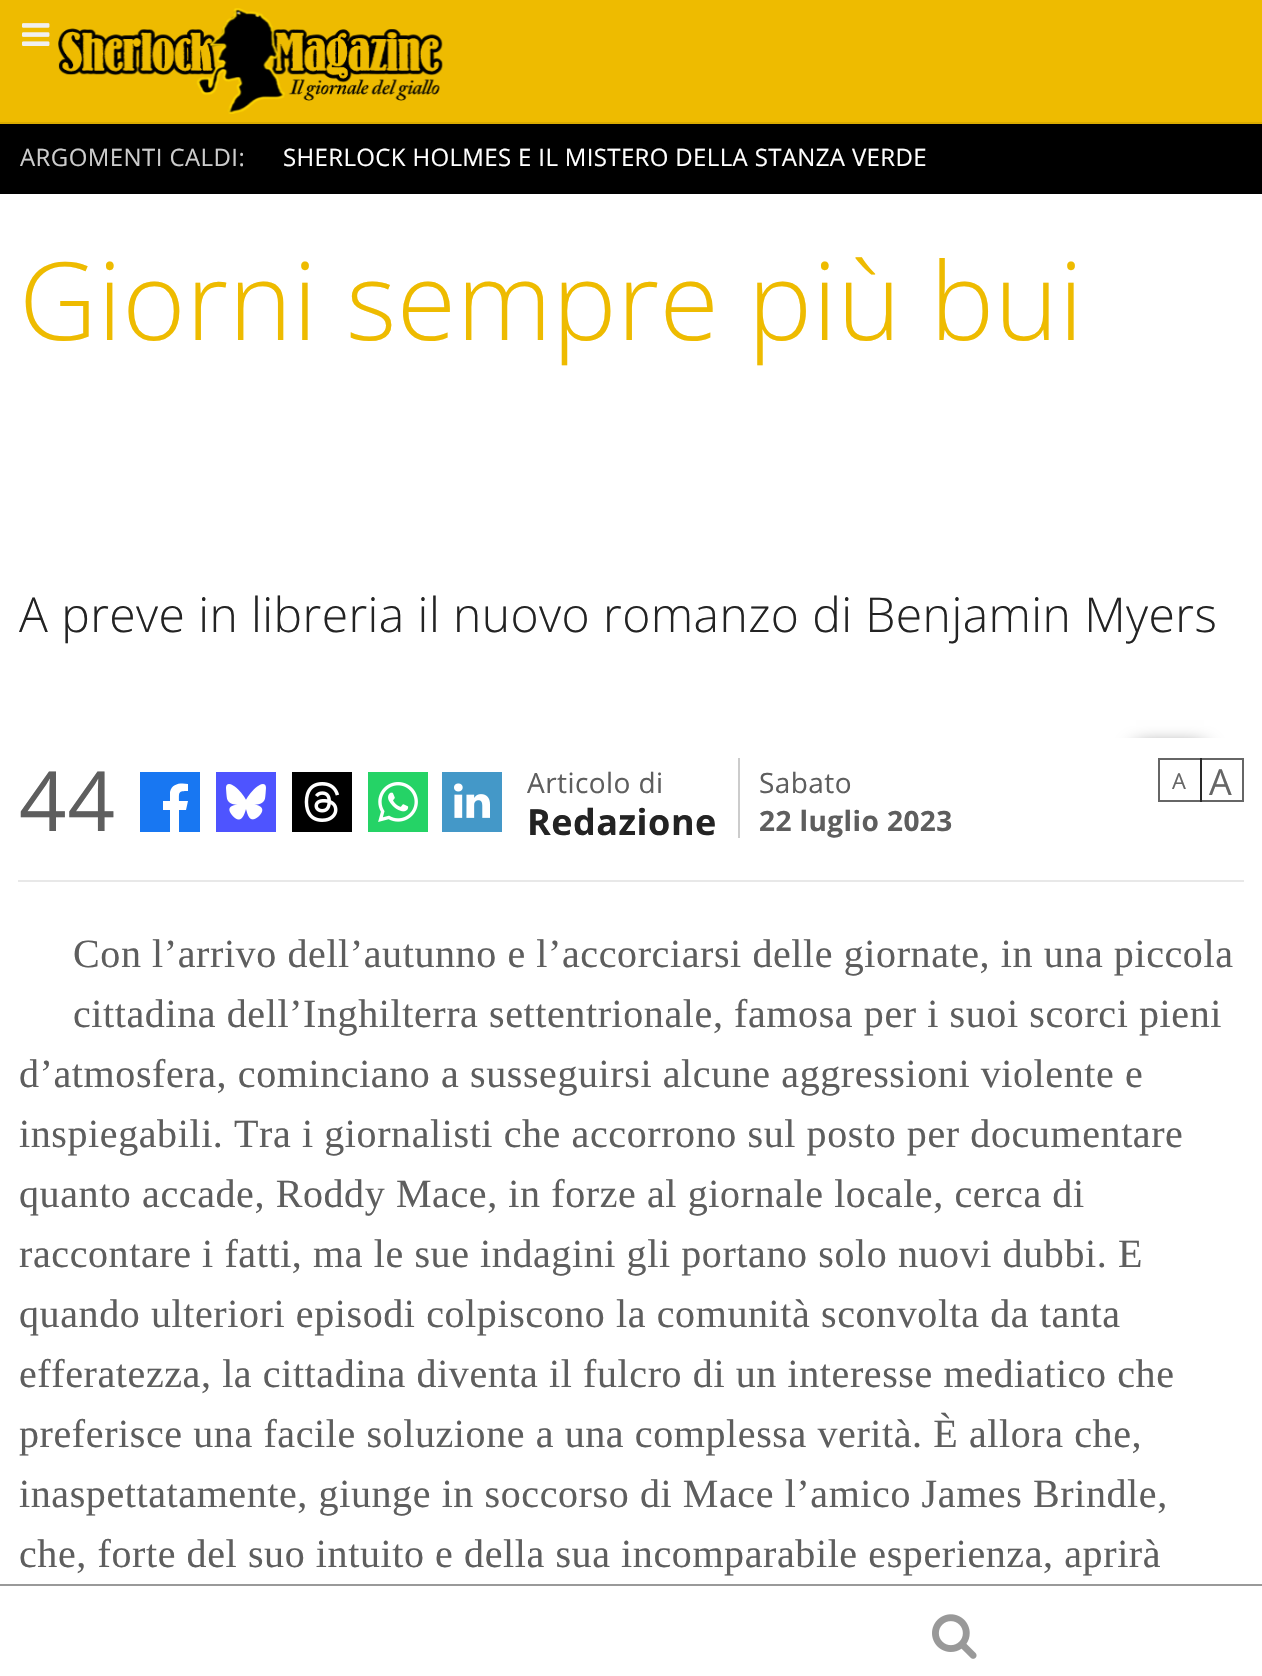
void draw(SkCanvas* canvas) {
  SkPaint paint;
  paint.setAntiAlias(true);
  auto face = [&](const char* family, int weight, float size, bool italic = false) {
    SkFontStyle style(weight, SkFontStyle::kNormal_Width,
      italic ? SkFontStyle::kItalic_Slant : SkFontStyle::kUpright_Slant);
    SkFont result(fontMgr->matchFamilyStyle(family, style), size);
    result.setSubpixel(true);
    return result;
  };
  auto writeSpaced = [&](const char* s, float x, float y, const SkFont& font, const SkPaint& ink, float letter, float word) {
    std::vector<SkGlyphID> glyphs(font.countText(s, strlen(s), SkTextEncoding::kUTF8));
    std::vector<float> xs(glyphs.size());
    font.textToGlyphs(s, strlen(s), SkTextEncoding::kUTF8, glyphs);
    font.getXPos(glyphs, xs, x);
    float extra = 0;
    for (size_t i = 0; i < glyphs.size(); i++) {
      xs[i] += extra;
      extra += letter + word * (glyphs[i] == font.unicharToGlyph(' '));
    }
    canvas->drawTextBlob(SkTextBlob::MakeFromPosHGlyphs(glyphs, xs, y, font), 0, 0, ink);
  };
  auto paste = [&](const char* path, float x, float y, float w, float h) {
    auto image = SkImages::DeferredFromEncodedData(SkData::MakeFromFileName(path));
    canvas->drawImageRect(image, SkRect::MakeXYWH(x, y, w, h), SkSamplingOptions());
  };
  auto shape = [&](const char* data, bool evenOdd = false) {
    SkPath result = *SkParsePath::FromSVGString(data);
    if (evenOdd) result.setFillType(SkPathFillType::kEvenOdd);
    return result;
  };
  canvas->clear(0xffeebb00);
  paste("img/1.png", 22, 23, 28, 23);
  paste("img/2.png", 58, 8, 385, 106);
  paint.setStroke(true);
  paint.setStrokeWidth(2);
  paint.setColor(0xffdbac00);
  canvas->drawRect(SkRect::MakeXYWH(-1, 123, 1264, 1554), paint);
  paint.setStroke(false);
  {
    const struct { float x, y, w, h; SkColor color; } items[] = {
      {0, 194, 1262, 1390, 0xffffffff},
      {0, 124, 1262, 70, 0xff000000},
      {0, 1586, 1262, 90, 0xffffffff},
      {0, 1584, 1262, 2, 0xff999999},
    };
    for (auto [x, y, w, h, color] : items) {
      paint.setColor(color);
      canvas->drawRect(SkRect::MakeXYWH(x, y, w, h), paint);
    }
  }
  paste("img/3.png", 932, 1614, 45, 45);
  paint.setColor(0xffe8e8e8);
  canvas->drawRect(SkRect::MakeXYWH(18, 880, 1226, 2), paint);
  canvas->save();
  canvas->clipRect(SkRect::MakeXYWH(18, 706, 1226, 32));
  paint.setColor(0xff000000);
  paint.setMaskFilter(SkMaskFilter::MakeBlur(kNormal_SkBlurStyle, 10));
  canvas->drawRect(SkRect::MakeXYWH(1136, 750, 68, 68), paint);
  paint.setMaskFilter(nullptr);
  canvas->restore();
  paint.setColor(0xff1877f2);
  canvas->drawRect(SkRect::MakeXYWH(140, 772, 60, 60), paint);
  paint.setColor(0xffffffff);
  canvas->drawPath(shape("M188 784V791C178 791 179 792 179 801H188L186 810H179V832H170V810H163V801H170V792C172 783 181 783 188 784Z"), paint);
  paint.setColor(0xff4e54ff);
  canvas->drawRect(SkRect::MakeXYWH(216, 772, 60, 60), paint);
  paste("img/4.png", 226, 784, 40, 36);
  paint.setColor(0xff000000);
  canvas->drawRect(SkRect::MakeXYWH(292, 772, 60, 60), paint);
  paste("img/5.png", 304, 782, 36, 40);
  paint.setColor(0xff25d366);
  canvas->drawRect(SkRect::MakeXYWH(368, 772, 60, 60), paint);
  paste("img/6.png", 378, 782, 40, 40);
  paint.setColor(0xff4498c8);
  canvas->drawRect(SkRect::MakeXYWH(442, 772, 60, 60), paint);
  paste("img/7.png", 454, 783, 36, 35);
  paint.setColor(0xffcccccc);
  canvas->drawRect(SkRect::MakeXYWH(738, 758, 2, 80), paint);
  paint.setStroke(true);
  paint.setColor(0xff666666);
  canvas->drawRect(SkRect::MakeXYWH(1159, 759, 42, 42), paint);
  paint.setColor(0x99000000);
  canvas->drawRect(SkRect::MakeXYWH(1201, 759, 42, 42), paint);
  auto f0 = face("Open Sans", 400, 24);
  paint.setStroke(false);
  paint.setColor(0xffcccccc);
  writeSpaced("ARGOMENTI CALDI:", 20, 166, f0, paint, 0.42f, 0);
  paint.setColor(0xffffffff);
  writeSpaced("SHERLOCK HOLMES E IL MISTERO DELLA STANZA VERDE", 283, 166, f0, paint, 0.35f, 0);
  auto f1 = face("Open Sans", 300, 108);
  paint.setColor(0xffeebb00);
  writeSpaced("Giorni sempre più bui", 19, 340, f1, paint, 0.42f, 0);
  auto f2 = face("Open Sans", 300, 48);
  paint.setColor(0xff232323);
  writeSpaced("A preve in libreria il nuovo romanzo di Benjamin Myers", 19, 632, f2, paint, 0.42f, 0);
  auto f3 = face("Open Sans", 400, 83);
  paint.setColor(0xff5e5e5e);
  writeSpaced("44", 19, 831, f3, paint, 1, 0);
  auto f4 = face("Open Sans", 400, 28);
  writeSpaced("Articolo di", 527, 793, f4, paint, 0.42f, 0);
  auto f5 = face("Open Sans", 700, 36);
  paint.setColor(0xff232323);
  writeSpaced("Redazione", 527, 835, f5, paint, 0.5f, 0);
  paint.setColor(0xff5e5e5e);
  writeSpaced("Sabato", 759, 793, f4, paint, 0.42f, 0);
  auto f6 = face("Open Sans", 700, 28);
  writeSpaced("22 luglio 2023", 759, 831, f6, paint, 0.42f, 0);
  auto f7 = face("Open Sans", 400, 22);
  paint.setColor(0xff666666);
  canvas->drawString("A", 1172, 789, f7, paint);
  auto f8 = face("Open Sans", 400, 36);
  writeSpaced("A", 1209, 795, f8, paint, 0.5f, 0);
  auto f9 = face("Liberation Serif", 400, 40);
  paint.setColor(0xff5e5e5e);
  {
    const struct { const char* s; float x, y; } items[] = {
      {"Con l’arrivo dell’autunno e l’accorciarsi delle giornate, in una piccola", 73, 967},
      {"cittadina dell’Inghilterra settentrionale, famosa per i suoi scorci pieni", 73, 1027},
      {"d’atmosfera, cominciano a susseguirsi alcune aggressioni violente e", 19, 1087},
      {"inspiegabili. Tra i giornalisti che accorrono sul posto per documentare", 19, 1147},
      {"quanto accade, Roddy Mace, in forze al giornale locale, cerca di", 19, 1207},
      {"raccontare i fatti, ma le sue indagini gli portano solo nuovi dubbi. E", 19, 1267},
      {"quando ulteriori episodi colpiscono la comunità sconvolta da tanta", 19, 1327},
      {"efferatezza, la cittadina diventa il fulcro di un interesse mediatico che", 19, 1387},
      {"preferisce una facile soluzione a una complessa verità. È allora che,", 19, 1447},
      {"inaspettatamente, giunge in soccorso di Mace l’amico James Brindle,", 19, 1507},
      {"che, forte del suo intuito e della sua incomparabile esperienza, aprirà", 19, 1567},
    };
    for (auto [s, x, y] : items) {
      writeSpaced(s, x, y, f9, paint, 0.6f, 0);
    }
  }
}
